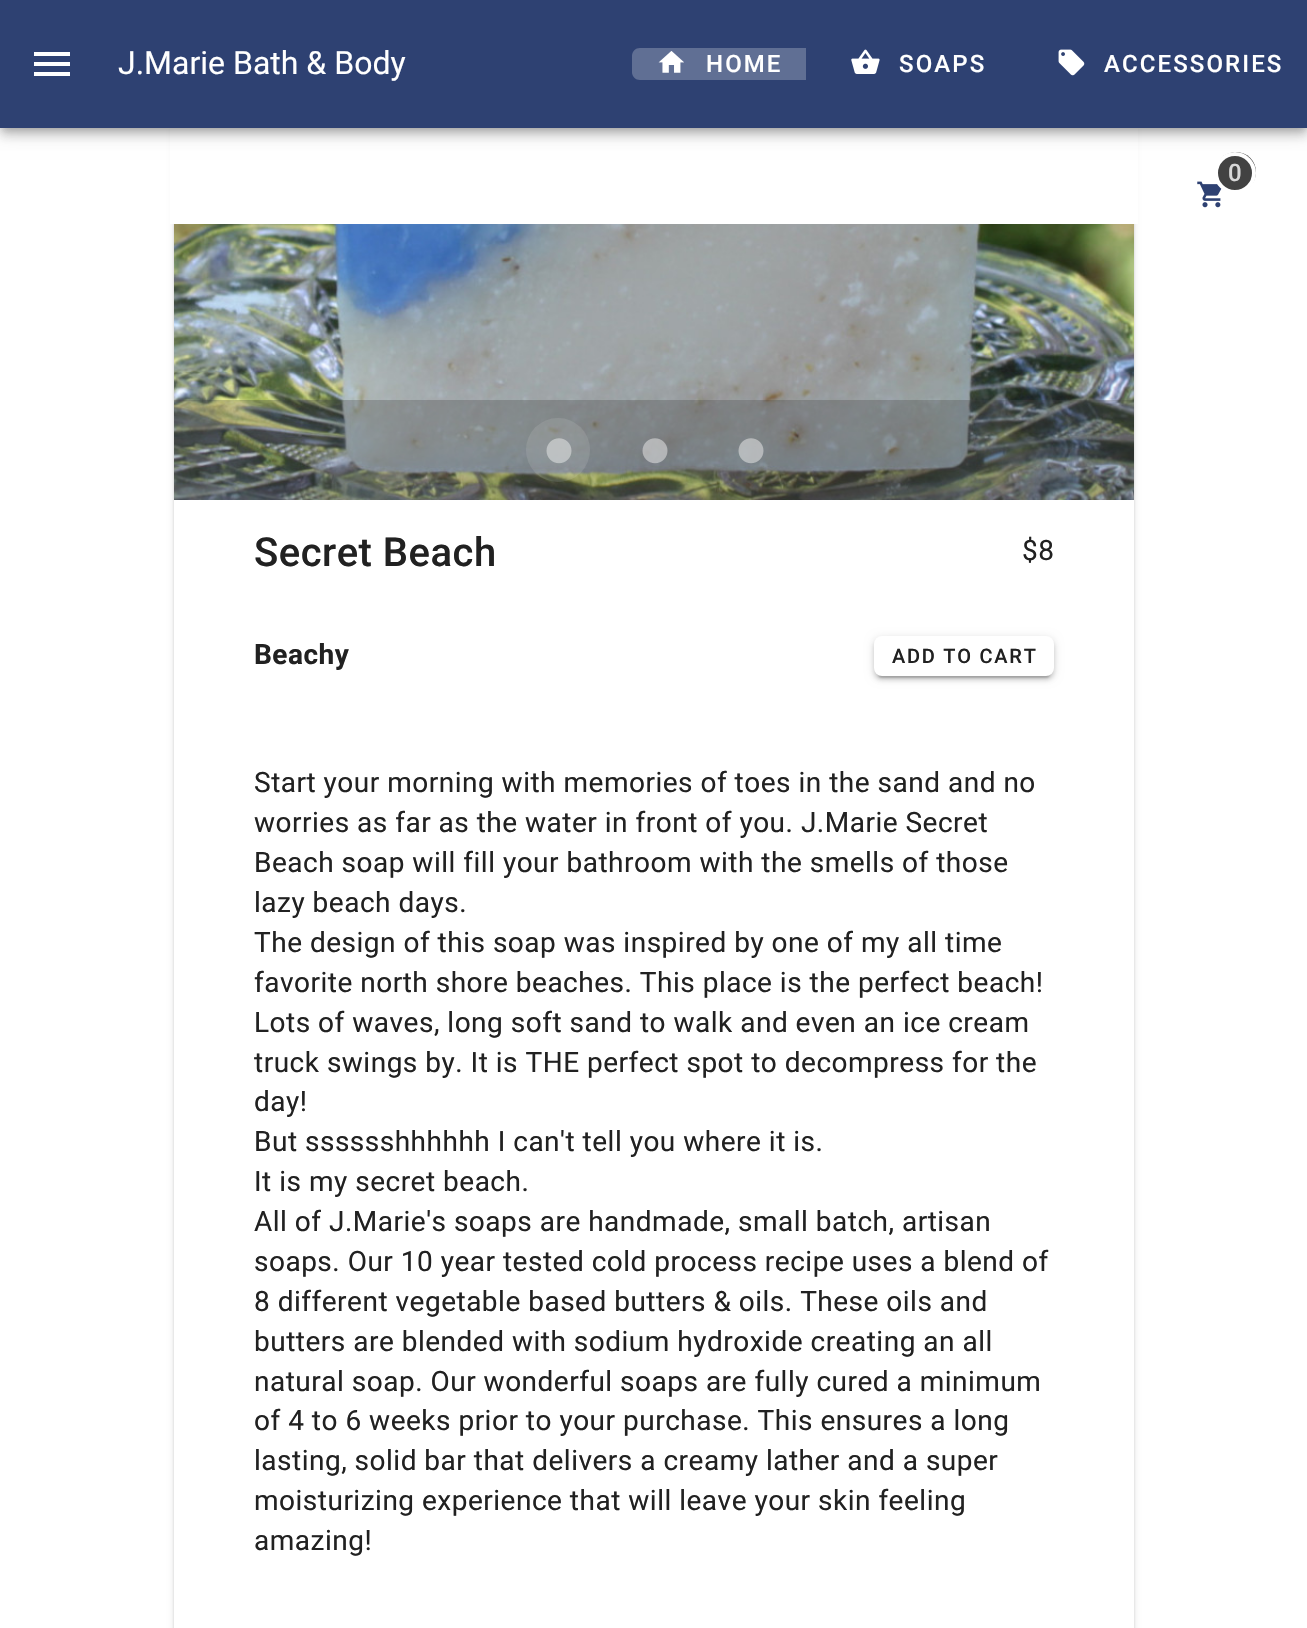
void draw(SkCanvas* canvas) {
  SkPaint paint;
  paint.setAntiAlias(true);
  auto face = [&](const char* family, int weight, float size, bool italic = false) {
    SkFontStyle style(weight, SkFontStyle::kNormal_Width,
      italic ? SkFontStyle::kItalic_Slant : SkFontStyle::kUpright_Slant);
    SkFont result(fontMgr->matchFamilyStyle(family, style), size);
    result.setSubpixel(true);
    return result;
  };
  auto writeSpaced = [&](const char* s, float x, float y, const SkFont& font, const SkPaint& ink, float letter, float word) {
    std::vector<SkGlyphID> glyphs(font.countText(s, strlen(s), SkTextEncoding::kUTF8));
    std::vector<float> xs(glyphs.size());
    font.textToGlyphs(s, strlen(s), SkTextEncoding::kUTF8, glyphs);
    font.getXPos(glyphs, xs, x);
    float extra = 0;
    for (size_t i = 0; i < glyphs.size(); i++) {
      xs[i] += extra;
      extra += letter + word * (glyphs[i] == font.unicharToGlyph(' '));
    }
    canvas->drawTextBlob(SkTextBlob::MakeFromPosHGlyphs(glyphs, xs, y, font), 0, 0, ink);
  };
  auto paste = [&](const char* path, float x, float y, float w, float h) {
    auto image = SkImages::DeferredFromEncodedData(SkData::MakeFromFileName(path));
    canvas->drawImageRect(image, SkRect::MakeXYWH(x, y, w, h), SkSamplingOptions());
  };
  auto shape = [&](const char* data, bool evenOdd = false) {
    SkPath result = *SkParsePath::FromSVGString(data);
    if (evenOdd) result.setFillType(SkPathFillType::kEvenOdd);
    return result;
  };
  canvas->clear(0xffffffff);
  canvas->save();
  canvas->clipPath(shape("M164 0H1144V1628H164ZM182-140H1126C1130.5-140 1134-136.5 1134-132V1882C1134 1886.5 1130.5 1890 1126 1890H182C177.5 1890 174 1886.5 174 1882V-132C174-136.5 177.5-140 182-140Z", true), true);
  paint.setColor(0x1f000000);
  paint.setMaskFilter(SkMaskFilter::MakeBlur(kNormal_SkBlurStyle, 3));
  canvas->drawRoundRect(SkRect::MakeXYWH(174, -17, 960, 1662), 8, 8, paint);
  paint.setMaskFilter(nullptr);
  canvas->restore();
  canvas->save();
  canvas->clipPath(shape("M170 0H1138V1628H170ZM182-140H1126C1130.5-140 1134-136.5 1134-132V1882C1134 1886.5 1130.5 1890 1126 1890H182C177.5 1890 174 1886.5 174 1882V-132C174-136.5 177.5-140 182-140Z", true), true);
  paint.setColor(0x24000000);
  paint.setMaskFilter(SkMaskFilter::MakeBlur(kNormal_SkBlurStyle, 1));
  canvas->drawRoundRect(SkRect::MakeXYWH(174, -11, 960, 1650), 8, 8, paint);
  paint.setMaskFilter(nullptr);
  canvas->restore();
  paint.setColor(0xffffffff);
  canvas->drawRect(SkRect::MakeXYWH(170, 128, 968, 96), paint);
  paint.setColor(0x24000000);
  paint.setMaskFilter(SkMaskFilter::MakeBlur(kNormal_SkBlurStyle, 5));
  canvas->drawRect(SkRect::MakeXYWH(0, 8, 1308, 128), paint);
  paint.setMaskFilter(nullptr);
  paint.setColor(0x33000000);
  paint.setMaskFilter(SkMaskFilter::MakeBlur(kNormal_SkBlurStyle, 4));
  canvas->drawRect(SkRect::MakeXYWH(2, 6, 1304, 124), paint);
  paint.setMaskFilter(nullptr);
  paste("img/4.png", 1197, 181, 25, 27);
  paint.setColor(0xff424242);
  canvas->drawCircle(1236, 172, 20, paint);
  paste("img/5.png", 174, 224, 960, 276);
  paint.setColor(0x4d424242);
  canvas->drawRect(SkRect::MakeXYWH(174, 400, 960, 100), paint);
  paint.setColor(0x1feeeeee);
  canvas->drawCircle(558, 450, 32, paint);
  paste("img/6.png", 546, 438, 26, 26);
  paste("img/7.png", 642, 438, 26, 26);
  paste("img/8.png", 738, 438, 26, 26);
  paint.setColor(0x1f000000);
  paint.setMaskFilter(SkMaskFilter::MakeBlur(kNormal_SkBlurStyle, 5));
  canvas->drawRoundRect(SkRect::MakeXYWH(874, 638, 180, 40), 8, 8, paint);
  paint.setMaskFilter(nullptr);
  paint.setColor(0x24000000);
  paint.setMaskFilter(SkMaskFilter::MakeBlur(kNormal_SkBlurStyle, 2));
  canvas->drawRoundRect(SkRect::MakeXYWH(874, 640, 180, 40), 8, 8, paint);
  paint.setMaskFilter(nullptr);
  paint.setColor(0x33000000);
  paint.setMaskFilter(SkMaskFilter::MakeBlur(kNormal_SkBlurStyle, 1));
  canvas->drawRoundRect(SkRect::MakeXYWH(878, 646, 172, 32), 4, 4, paint);
  paint.setMaskFilter(nullptr);
  paint.setColor(0xffffffff);
  canvas->drawRoundRect(SkRect::MakeXYWH(874, 636, 180, 40), 8, 8, paint);
  auto f0 = face("Roboto", 500, 24);
  paint.setColor(0xffd8d8d8);
  writeSpaced("0", 1228, 181, f0, paint, 2.1f, 0);
  paint.setStroke(true);
  paint.setStrokeWidth(4);
  paint.setColor(0xffffffff);
  canvas->drawCircle(1235, 173, 19, paint);
  paint.setStroke(false);
  paint.setColor(0x1f000000);
  paint.setMaskFilter(SkMaskFilter::MakeBlur(kNormal_SkBlurStyle, 10));
  canvas->drawRect(SkRect::MakeXYWH(0, 2, 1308, 128), paint);
  paint.setMaskFilter(nullptr);
  paint.setColor(0xff2e4172);
  canvas->drawRect(SkRect::MakeXYWH(0, 0, 1307, 128), paint);
  paste("img/3.png", 1058, 49, 27, 27);
  paint.setColor(0xffffffff);
  writeSpaced("ACCESSORIES", 1104, 72, f0, paint, 2.1f, 0);
  paste("img/2.png", 851, 49, 29, 25);
  writeSpaced("SOAPS", 899, 72, f0, paint, 2.1f, 0);
  writeSpaced("HOME", 706, 72, f0, paint, 2.1f, 0);
  paint.setColor(0x3dffffff);
  canvas->drawPath(shape("M640 48H806V80H640C635.5 80 632 76.5 632 72V56C632 51.5 635.5 48 640 48Z"), paint);
  paste("img/1.png", 658, 51, 26, 22);
  paint.setColor(0xffffffff);
  canvas->drawPath(shape("M34 52H70V56H34ZM34 62H70V66H34ZM34 72H70V76H34Z"), paint);
  auto f1 = face("Roboto", 400, 32);
  canvas->drawString("J.Marie Bath & Body", 118, 74, f1, paint);
  auto f2 = face("Roboto", 500, 40);
  paint.setColor(0xff212121);
  writeSpaced("Secret Beach", 254, 566, f2, paint, 0.5f, 0);
  auto f3 = face("Roboto", 400, 28);
  writeSpaced("$8", 1022, 560, f3, paint, 0.5f, 0);
  auto f4 = face("Roboto", 700, 28);
  writeSpaced("Beachy", 254, 664, f4, paint, 0.5f, 0);
  auto f5 = face("Roboto", 500, 20);
  writeSpaced("ADD TO CART", 892, 663, f5, paint, 1.75f, 0);
  {
    const struct { const char* s; float x, y; } items[] = {
      {"Start your morning with memories of toes in the sand and no", 254, 792},
      {"worries as far as the water in front of you. J.Marie Secret", 254, 832},
      {"Beach soap will fill your bathroom with the smells of those", 254, 872},
      {"lazy beach days.", 254, 912},
      {"The design of this soap was inspired by one of my all time", 254, 952},
      {"favorite north shore beaches. This place is the perfect beach!", 254, 992},
      {"Lots of waves, long soft sand to walk and even an ice cream", 254, 1032},
      {"truck swings by. It is THE perfect spot to decompress for the", 254, 1072},
      {"day!", 254, 1111},
      {"But sssssshhhhhh I can't tell you where it is.", 254, 1151},
      {"It is my secret beach.", 254, 1191},
      {"All of J.Marie's soaps are handmade, small batch, artisan", 254, 1231},
      {"soaps. Our 10 year tested cold process recipe uses a blend of", 254, 1271},
      {"8 different vegetable based butters & oils. These oils and", 254, 1311},
      {"butters are blended with sodium hydroxide creating an all", 254, 1351},
      {"natural soap. Our wonderful soaps are fully cured a minimum", 254, 1391},
      {"of 4 to 6 weeks prior to your purchase. This ensures a long", 254, 1430},
      {"lasting, solid bar that delivers a creamy lather and a super", 254, 1470},
      {"moisturizing experience that will leave your skin feeling", 254, 1510},
      {"amazing!", 254, 1550},
    };
    for (auto [s, x, y] : items) {
      writeSpaced(s, x, y, f3, paint, 0.5f, 0);
    }
  }
}
